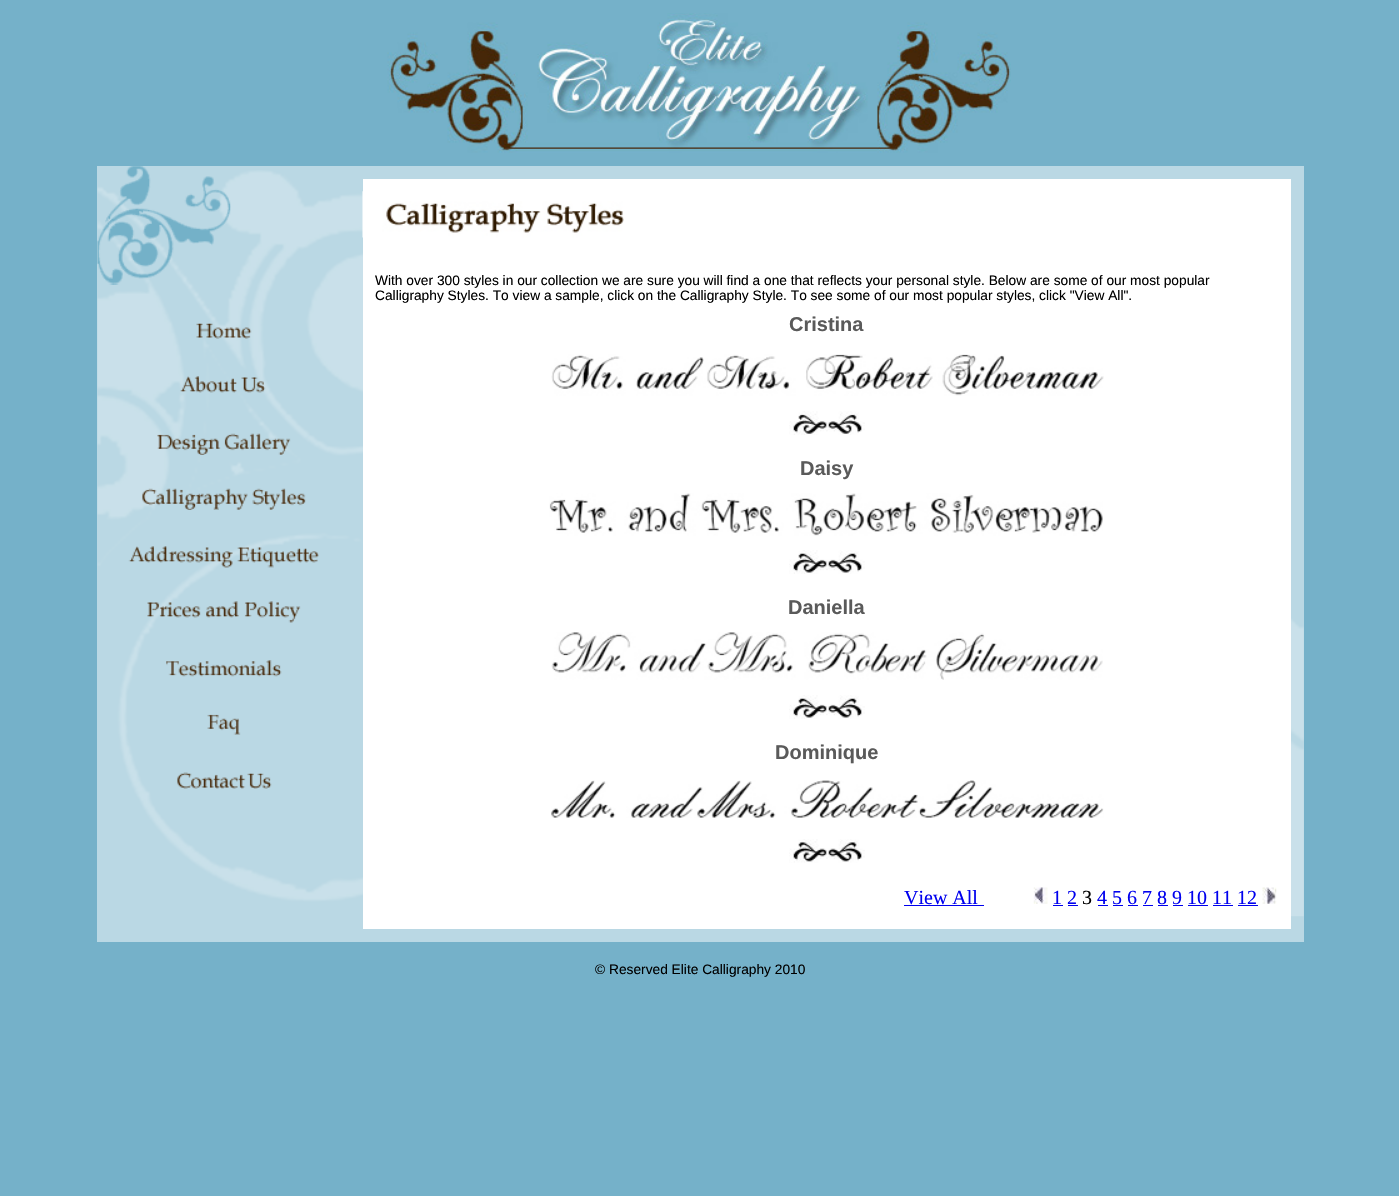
void draw(SkCanvas* canvas) {
  SkPaint paint;
  paint.setAntiAlias(true);
  auto face = [&](const char* family, int weight, float size, bool italic = false) {
    SkFontStyle style(weight, SkFontStyle::kNormal_Width,
      italic ? SkFontStyle::kItalic_Slant : SkFontStyle::kUpright_Slant);
    SkFont result(fontMgr->matchFamilyStyle(family, style), size);
    result.setSubpixel(true);
    return result;
  };
  auto paste = [&](const char* path, float x, float y, float w, float h) {
    auto image = SkImages::DeferredFromEncodedData(SkData::MakeFromFileName(path));
    canvas->drawImageRect(image, SkRect::MakeXYWH(x, y, w, h), SkSamplingOptions());
  };
  canvas->clear(0xff75b1c9);
  paint.setColor(0xffbad8e4);
  canvas->drawRect(SkRect::MakeXYWH(97, 166, 1207, 776), paint);
  paste("img/1.png", 387, 13, 624, 140);
  paste("img/2.png", 97, 170, 1207, 747);
  paste("img/3.png", 97, 166, 134, 119);
  paste("img/4.png", 196, 323, 56, 16);
  paste("img/5.png", 180, 376, 86, 17);
  paste("img/6.png", 157, 433, 134, 22);
  paste("img/7.png", 142, 488, 164, 22);
  paste("img/8.png", 128, 546, 191, 22);
  paste("img/9.png", 147, 601, 154, 22);
  paste("img/10.png", 166, 660, 116, 17);
  paste("img/11.png", 207, 714, 34, 21);
  paste("img/12.png", 177, 772, 95, 17);
  paint.setColor(0xffffffff);
  canvas->drawRect(SkRect::MakeXYWH(363, 179, 928, 750), paint);
  paste("img/13.png", 362, 191, 262, 47);
  paste("img/14.png", 551, 354, 553, 42);
  paste("img/15.png", 789, 411, 76, 24);
  paste("img/16.png", 549, 493, 554, 43);
  paste("img/17.png", 789, 550, 76, 24);
  paste("img/18.png", 551, 632, 552, 48);
  paste("img/17.png", 789, 695, 76, 24);
  paste("img/19.png", 551, 780, 553, 38);
  paste("img/20.png", 789, 839, 76, 24);
  paint.setColor(0xff0000ee);
  canvas->drawRect(SkRect::MakeXYWH(904, 905, 80, 1), paint);
  paste("img/21.png", 1033, 887, 15, 17);
  canvas->drawRect(SkRect::MakeXYWH(1053, 905, 10, 1), paint);
  canvas->drawRect(SkRect::MakeXYWH(1098, 905, 10, 1), paint);
  paste("img/22.png", 1262, 887, 15, 17);
  {
    const struct { float x, y, w, h; SkColor color; } items[] = {
      {1068, 905, 10, 1, 0xff0000ee},
      {1113, 905, 10, 1, 0xff0000ee},
      {1128, 905, 10, 1, 0xff0000ee},
      {1143, 905, 10, 1, 0xff0000ee},
      {1158, 905, 10, 1, 0xff0000ee},
      {1173, 905, 10, 1, 0xff0000ee},
      {1188, 905, 20, 1, 0xff0000ee},
      {1213, 905, 20, 1, 0xff0000ee},
      {1238, 905, 20, 1, 0xff0000ee},
    };
    for (auto [x, y, w, h, color] : items) {
      paint.setColor(color);
      canvas->drawRect(SkRect::MakeXYWH(x, y, w, h), paint);
    }
  }
  auto f0 = face("Liberation Sans", 400, 13.75f);
  paint.setColor(0xff000000);
  canvas->drawString("With over 300 styles in our collection we are sure you will find a one that reflects your personal style. Below are some of our most popular", 375, 285, f0, paint);
  canvas->drawString("Calligraphy Styles. To view a sample, click on the Calligraphy Style. To see some of our most popular styles, click \"View All\".", 375, 300, f0, paint);
  auto f1 = face("Liberation Sans", 700, 20);
  paint.setColor(0xff5a5a5a);
  {
    const struct { const char* s; float x, y; } items[] = {
      {"Cristina", 789, 331},
      {"Daisy", 800, 475},
      {"Daniella", 788, 614},
      {"Dominique", 775, 759},
    };
    for (auto [s, x, y] : items) {
      canvas->drawString(s, x, y, f1, paint);
    }
  }
  auto f2 = face("Liberation Serif", 400, 20);
  paint.setColor(0xff0000ee);
  canvas->drawString("View All", 904, 904, f2, paint);
  canvas->drawString("1 2", 1052, 904, f2, paint);
  paint.setColor(0xff000000);
  canvas->drawString("3", 1082, 904, f2, paint);
  paint.setColor(0xff0000ee);
  canvas->drawString("4 5 6 7 8 9 10 11 12", 1097, 904, f2, paint);
  paint.setColor(0xff000000);
  canvas->drawString("© Reserved Elite Calligraphy 2010", 595, 974, f0, paint);
}
